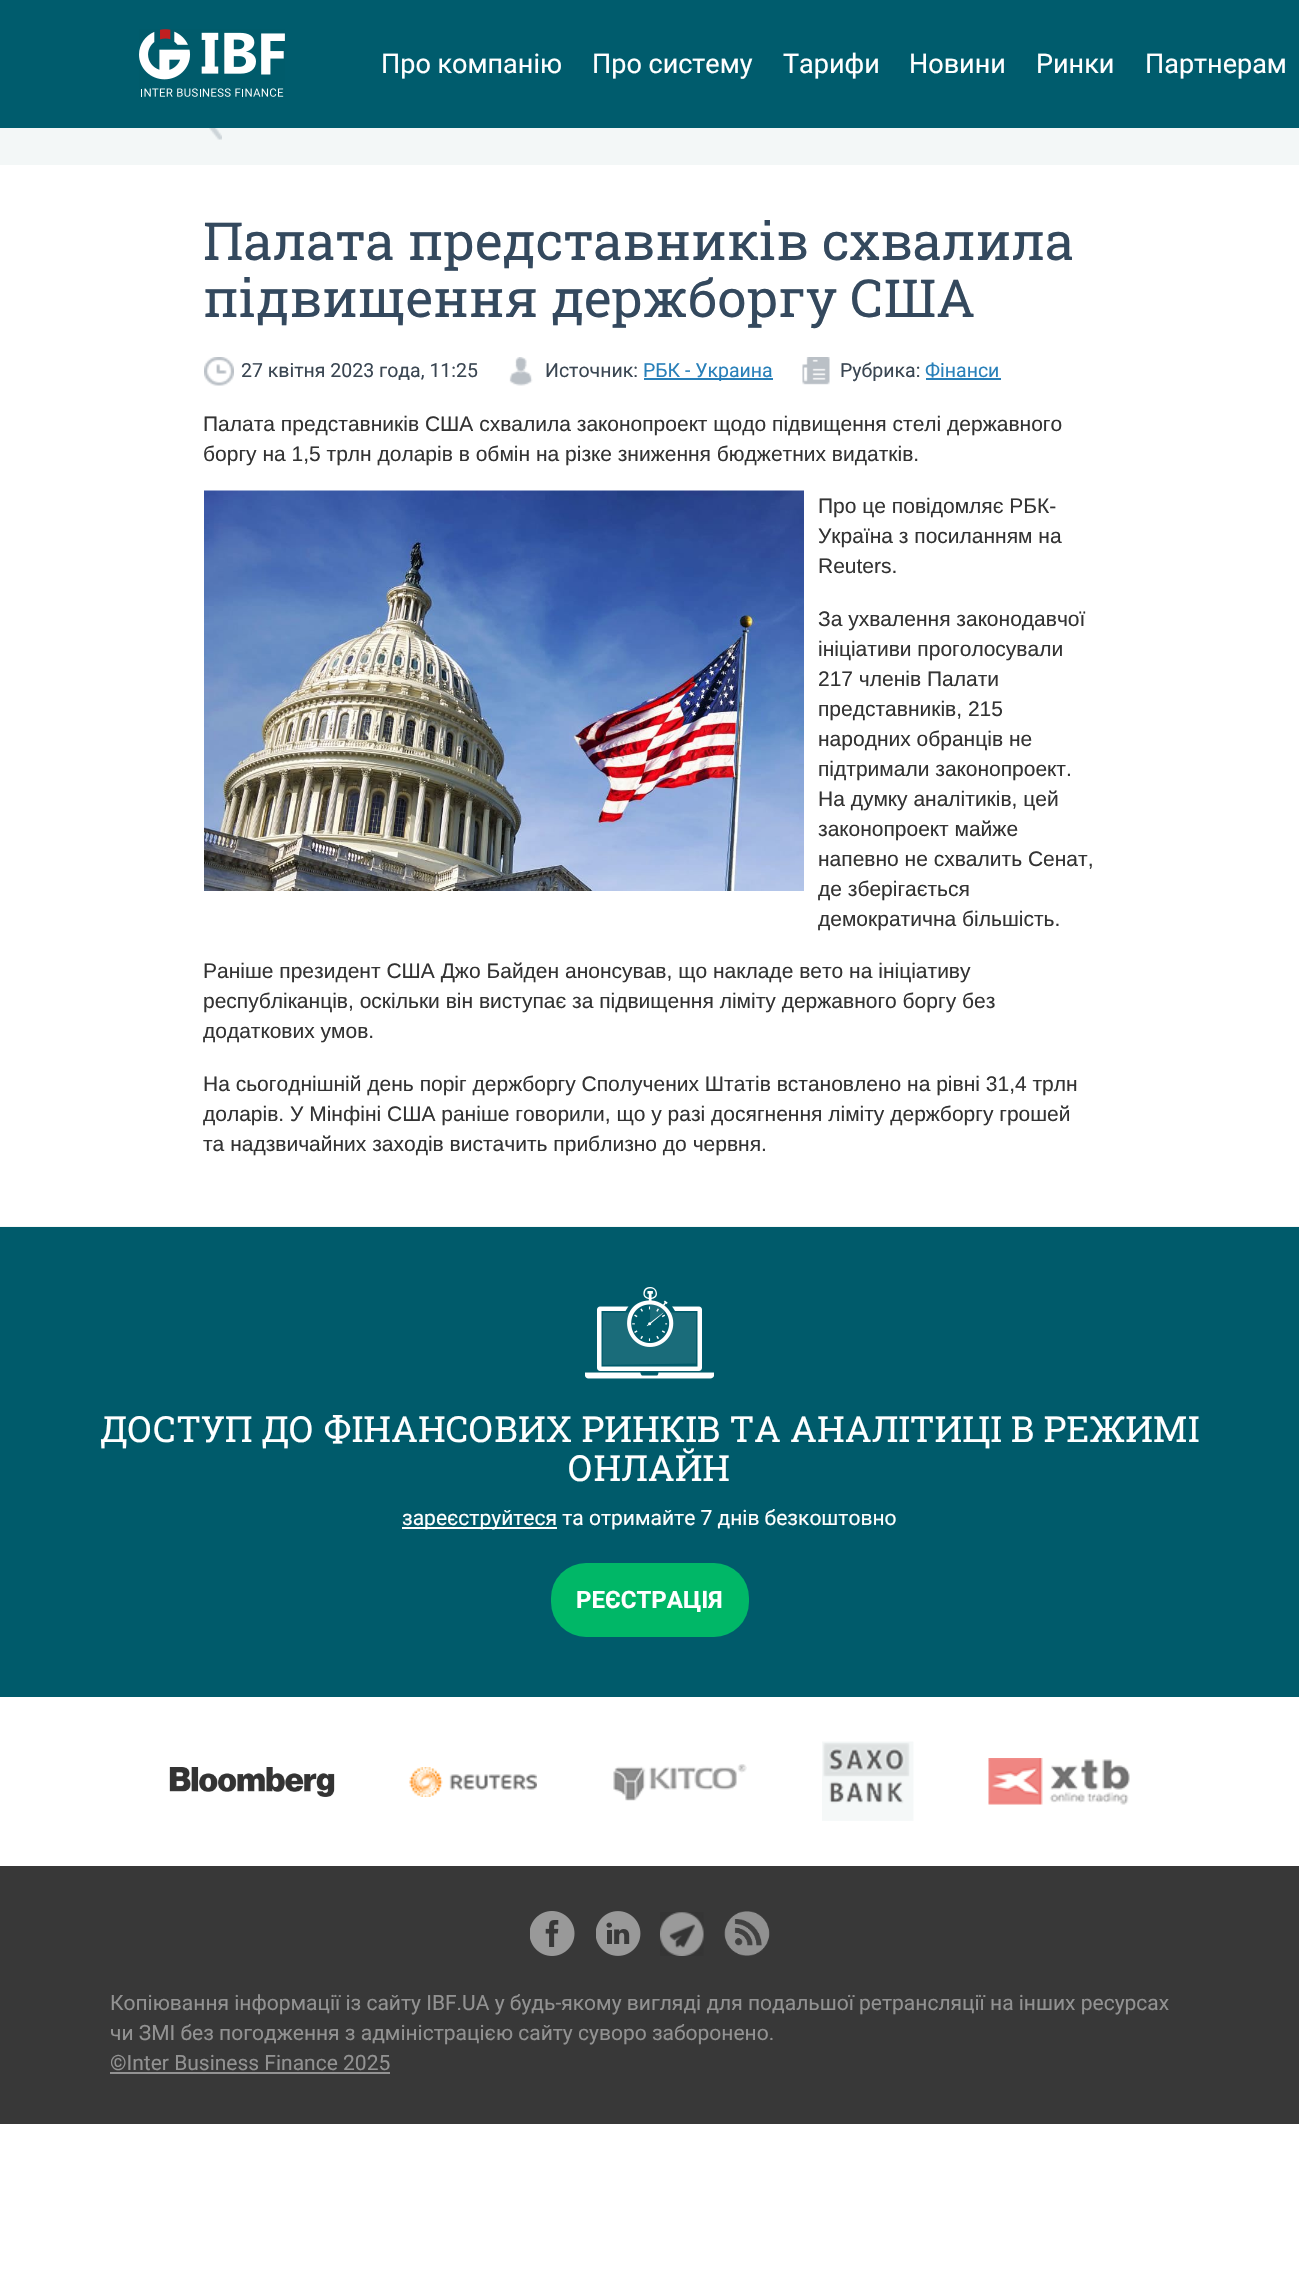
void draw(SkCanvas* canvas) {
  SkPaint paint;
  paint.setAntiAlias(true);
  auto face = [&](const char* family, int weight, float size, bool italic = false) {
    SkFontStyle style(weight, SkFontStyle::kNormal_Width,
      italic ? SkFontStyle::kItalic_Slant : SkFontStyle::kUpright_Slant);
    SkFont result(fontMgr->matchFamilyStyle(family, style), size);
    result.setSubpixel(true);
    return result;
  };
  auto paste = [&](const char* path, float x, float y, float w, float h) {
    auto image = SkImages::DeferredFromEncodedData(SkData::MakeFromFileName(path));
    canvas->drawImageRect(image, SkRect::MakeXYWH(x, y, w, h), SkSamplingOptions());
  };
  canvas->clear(0xffffffff);
  paint.setColor(0xff005c6d);
  canvas->drawRect(SkRect::MakeXYWH(0, 0, 1299, 128), paint);
  paste("img/1.png", 139, 29, 146, 68);
  paint.setColor(0xfff3f7f7);
  canvas->drawRect(SkRect::MakeXYWH(0, 128, 1299, 37), paint);
  paste("img/2.png", 209, 128, 13, 12);
  paste("img/3.png", 204, 357, 30, 29);
  paste("img/4.png", 509, 357, 24, 29);
  paint.setColor(0xff2980b9);
  canvas->drawRect(SkRect::MakeXYWH(644, 378, 129, 2), paint);
  paste("img/5.png", 802, 357, 28, 28);
  canvas->drawRect(SkRect::MakeXYWH(926, 378, 75, 2), paint);
  paste("img/6.png", 204, 490, 600, 401);
  paint.setColor(0xfff3f7f7);
  canvas->drawRect(SkRect::MakeXYWH(0, 1226, 1299, 1), paint);
  paint.setColor(0xff005b6b);
  canvas->drawRect(SkRect::MakeXYWH(0, 1227, 1299, 470), paint);
  paste("img/7.png", 585, 1287, 129, 92);
  paint.setColor(0xffffffff);
  canvas->drawRect(SkRect::MakeXYWH(402, 1527, 155, 2), paint);
  paint.setColor(0xff00b767);
  canvas->drawRoundRect(SkRect::MakeXYWH(551, 1563, 198, 74), 35, 35, paint);
  paste("img/8.png", 169, 1767, 166, 30);
  paste("img/9.png", 409, 1767, 128, 30);
  paste("img/10.png", 613, 1764, 134, 37);
  paste("img/11.png", 822, 1741, 92, 80);
  paste("img/12.png", 988, 1758, 142, 47);
  paint.setColor(0xff383838);
  canvas->drawRect(SkRect::MakeXYWH(0, 1866, 1299, 258), paint);
  paste("img/13.png", 530, 1911, 45, 45);
  paste("img/14.png", 596, 1911, 45, 45);
  paste("img/15.png", 660, 1912, 44, 44);
  paste("img/16.png", 724, 1911, 46, 45);
  paint.setColor(0xff929292);
  canvas->drawRect(SkRect::MakeXYWH(110, 2072, 280, 2), paint);
  auto f0 = face("Roboto", 400, 27);
  paint.setColor(0xffffffff);
  {
    const struct { const char* s; float x, y; } items[] = {
      {"Про компанію", 381, 73},
      {"Про систему", 592, 73},
      {"Тарифи", 783, 73},
      {"Новини", 909, 73},
      {"Ринки", 1036, 73},
      {"Партнерам", 1145, 73},
    };
    for (auto [s, x, y] : items) {
      canvas->drawString(s, x, y, f0, paint);
    }
  }
  auto f1 = face("Roboto Slab", 400, 52.5f);
  paint.setColor(0xff34495e);
  canvas->drawString("Палата представників схвалила", 203, 260, f1, paint);
  canvas->drawString("підвищення держборгу США", 203, 317, f1, paint);
  auto f2 = face("Roboto", 400, 19.5f);
  paint.setColor(0xff3a4652);
  canvas->drawString("27 квітня 2023 года, 11:25", 241, 377, f2, paint);
  canvas->drawString("Источник:", 545, 377, f2, paint);
  paint.setColor(0xff2980b9);
  canvas->drawString("РБК - Украина", 643, 377, f2, paint);
  paint.setColor(0xff3a4652);
  canvas->drawString("Рубрика:", 840, 377, f2, paint);
  paint.setColor(0xff2980b9);
  canvas->drawString("Фінанси", 925, 377, f2, paint);
  auto f3 = face("Liberation Sans", 400, 21);
  paint.setColor(0xff333333);
  {
    const struct { const char* s; float x, y; } items[] = {
      {"Палата представників США схвалила законопроект щодо підвищення стелі державного", 203, 431},
      {"боргу на 1,5 трлн доларів в обмін на різке зниження бюджетних видатків.", 203, 461},
      {"Про це повідомляє РБК-", 818, 513},
      {"Україна з посиланням на", 818, 543},
      {"Reuters.", 818, 573},
      {"За ухвалення законодавчої", 818, 626},
      {"ініціативи проголосували", 818, 656},
      {"217 членів Палати", 818, 686},
      {"представників, 215", 818, 716},
      {"народних обранців не", 818, 746},
      {"підтримали законопроект.", 818, 776},
      {"На думку аналітиків, цей", 818, 806},
      {"законопроект майже", 818, 836},
      {"напевно не схвалить Сенат,", 818, 866},
      {"де зберігається", 818, 896},
      {"демократична більшість.", 818, 926},
      {"Раніше президент США Джо Байден анонсував, що накладе вето на ініціативу", 203, 978},
      {"республіканців, оскільки він виступає за підвищення ліміту державного боргу без", 203, 1008},
      {"додаткових умов.", 203, 1038},
      {"На сьогоднішній день поріг держборгу Сполучених Штатів встановлено на рівні 31,4 трлн", 203, 1091},
      {"доларів. У Мінфіні США раніше говорили, що у разі досягнення ліміту держборгу грошей", 203, 1121},
      {"та надзвичайних заходів вистачить приблизно до червня.", 203, 1151},
    };
    for (auto [s, x, y] : items) {
      canvas->drawString(s, x, y, f3, paint);
    }
  }
  auto f4 = face("Roboto Slab", 400, 36);
  paint.setColor(0xffffffff);
  canvas->drawString("ДОСТУП ДО ФІНАНСОВИХ РИНКІВ ТА АНАЛІТИЦІ В РЕЖИМІ", 100, 1442, f4, paint);
  canvas->drawString("ОНЛАЙН", 568, 1481, f4, paint);
  auto f5 = face("Roboto", 400, 21);
  canvas->drawString("зареєструйтеся та отримайте 7 днів безкоштовно", 402, 1525, f5, paint);
  auto f6 = face("Roboto", 700, 24);
  canvas->drawString("РЕЄСТРАЦІЯ", 576, 1608, f6, paint);
  paint.setColor(0xff929292);
  {
    const struct { const char* s; float x, y; } items[] = {
      {"Копіювання інформації із сайту IBF.UA у будь-якому вигляді для подальшої ретрансляції на інших ресурсах", 110, 2010},
      {"чи ЗМІ без погодження з адміністрацією сайту суворо заборонено.", 110, 2040},
      {"©Inter Business Finance 2025", 110, 2070},
    };
    for (auto [s, x, y] : items) {
      canvas->drawString(s, x, y, f5, paint);
    }
  }
}
